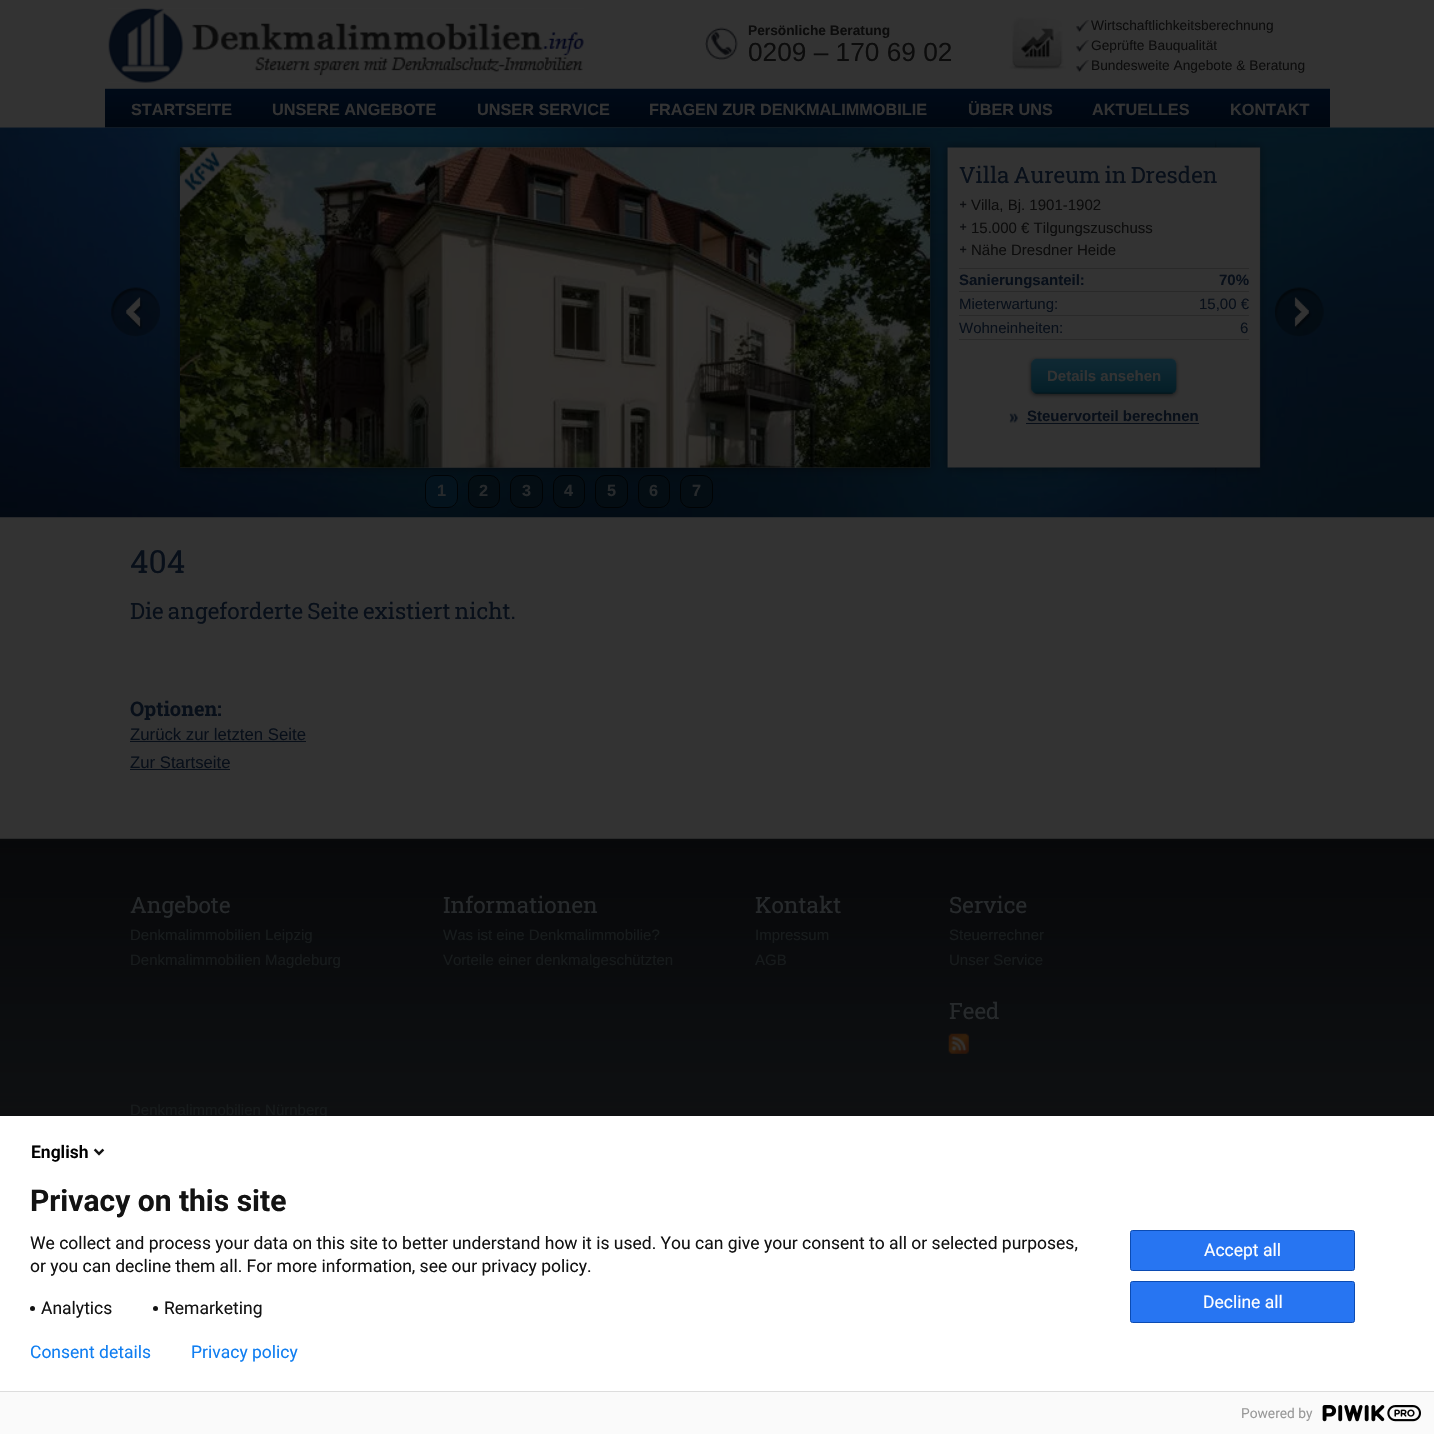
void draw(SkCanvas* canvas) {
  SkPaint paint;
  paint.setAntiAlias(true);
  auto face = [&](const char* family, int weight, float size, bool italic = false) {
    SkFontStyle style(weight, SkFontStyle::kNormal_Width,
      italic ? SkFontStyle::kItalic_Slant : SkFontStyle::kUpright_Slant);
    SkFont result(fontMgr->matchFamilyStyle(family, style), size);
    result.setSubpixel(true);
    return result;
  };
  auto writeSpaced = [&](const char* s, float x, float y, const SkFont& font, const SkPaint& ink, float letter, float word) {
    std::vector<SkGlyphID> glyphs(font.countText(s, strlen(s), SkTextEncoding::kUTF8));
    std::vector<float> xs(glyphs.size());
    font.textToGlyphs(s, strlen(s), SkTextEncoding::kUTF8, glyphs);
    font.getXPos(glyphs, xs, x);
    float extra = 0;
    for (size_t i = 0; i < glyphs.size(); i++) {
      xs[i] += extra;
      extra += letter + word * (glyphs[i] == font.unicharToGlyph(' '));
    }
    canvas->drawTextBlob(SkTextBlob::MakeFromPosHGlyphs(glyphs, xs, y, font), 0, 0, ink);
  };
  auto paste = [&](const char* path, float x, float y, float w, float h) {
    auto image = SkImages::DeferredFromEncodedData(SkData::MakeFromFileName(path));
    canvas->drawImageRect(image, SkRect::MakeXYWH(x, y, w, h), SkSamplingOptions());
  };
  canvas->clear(0xff333333);
  paste("img/1.png", 108, 8, 476, 75);
  paste("img/2.png", 705, 27, 33, 33);
  paste("img/3.png", 1009, 17, 57, 54);
  paste("img/4.png", 1076, 20, 13, 13);
  paste("img/4.png", 1076, 40, 13, 13);
  paste("img/4.png", 1076, 60, 13, 13);
  paste("img/5.png", 105, 88, 1225, 40);
  paste("img/6.png", 0, 127, 1434, 391);
  paste("img/7.png", 111, 287, 50, 50);
  paste("img/8.png", 171, 139, 769, 347);
  paste("img/9.png", 180, 147, 750, 321);
  paste("img/10.png", 180, 147, 64, 65);
  paste("img/11.png", 940, 136, 327, 351);
  paste("img/12.png", 960, 201, 7, 7);
  paste("img/13.png", 960, 223, 7, 7);
  paste("img/12.png", 960, 246, 7, 7);
  {
    const struct { float x, y, w, h; SkColor color; } items[] = {
      {959, 268, 290, 1, 0xff292929},
      {959, 291, 290, 1, 0xff292929},
      {959, 315, 290, 1, 0xff292929},
      {959, 339, 290, 1, 0xff292929},
    };
    for (auto [x, y, w, h, color] : items) {
      paint.setColor(color);
      canvas->drawRect(SkRect::MakeXYWH(x, y, w, h), paint);
    }
  }
  paint.setColor(0x80000000);
  paint.setMaskFilter(SkMaskFilter::MakeBlur(kNormal_SkBlurStyle, 2));
  canvas->drawRoundRect(SkRect::MakeXYWH(1031, 360, 145, 35), 5, 5, paint);
  paint.setMaskFilter(nullptr);
  paste("img/14.png", 1031, 358, 146, 36);
  paste("img/15.png", 1049, 358, 128, 36);
  paste("img/16.png", 1009, 413, 10, 10);
  paint.setColor(0xff080f19);
  canvas->drawRect(SkRect::MakeXYWH(1026, 423, 173, 1), paint);
  paste("img/17.png", 1274, 287, 50, 50);
  paint.setColor(0xcc04131e);
  canvas->drawRoundRect(SkRect::MakeXYWH(425, 475, 33, 33), 10, 10, paint);
  paint.setStroke(true);
  paint.setStrokeWidth(1);
  paint.setColor(0xcc000000);
  canvas->drawRoundRect(SkRect::MakeXYWH(425.5f, 475.5f, 32, 32), 9.5f, 9.5f, paint);
  paint.setStroke(false);
  paint.setColor(0xcc040d11);
  canvas->drawRoundRect(SkRect::MakeXYWH(468, 475, 32, 33), 10, 10, paint);
  paint.setStroke(true);
  paint.setColor(0xcc000000);
  canvas->drawRoundRect(SkRect::MakeXYWH(468.5f, 475.5f, 31, 32), 9.5f, 9.5f, paint);
  paint.setStroke(false);
  paint.setColor(0xcc040d11);
  canvas->drawRoundRect(SkRect::MakeXYWH(510, 475, 33, 33), 10, 10, paint);
  paint.setStroke(true);
  paint.setColor(0xcc000000);
  canvas->drawRoundRect(SkRect::MakeXYWH(510.5f, 475.5f, 32, 32), 9.5f, 9.5f, paint);
  paint.setStroke(false);
  paint.setColor(0xcc040d11);
  canvas->drawRoundRect(SkRect::MakeXYWH(553, 475, 32, 33), 10, 10, paint);
  paint.setStroke(true);
  paint.setColor(0xcc000000);
  canvas->drawRoundRect(SkRect::MakeXYWH(553.5f, 475.5f, 31, 32), 9.5f, 9.5f, paint);
  paint.setStroke(false);
  paint.setColor(0xcc040d11);
  canvas->drawRoundRect(SkRect::MakeXYWH(595, 475, 33, 33), 10, 10, paint);
  paint.setStroke(true);
  paint.setColor(0xcc000000);
  canvas->drawRoundRect(SkRect::MakeXYWH(595.5f, 475.5f, 32, 32), 9.5f, 9.5f, paint);
  paint.setStroke(false);
  paint.setColor(0xcc040d11);
  canvas->drawRoundRect(SkRect::MakeXYWH(638, 475, 32, 33), 10, 10, paint);
  paint.setStroke(true);
  paint.setColor(0xcc000000);
  canvas->drawRoundRect(SkRect::MakeXYWH(638.5f, 475.5f, 31, 32), 9.5f, 9.5f, paint);
  paint.setStroke(false);
  paint.setColor(0xcc040d11);
  canvas->drawRoundRect(SkRect::MakeXYWH(680, 475, 33, 33), 10, 10, paint);
  paint.setStroke(true);
  paint.setColor(0xcc000000);
  canvas->drawRoundRect(SkRect::MakeXYWH(680.5f, 475.5f, 32, 32), 9.5f, 9.5f, paint);
  paint.setStroke(false);
  paint.setColor(0xff080f19);
  canvas->drawRect(SkRect::MakeXYWH(130, 741, 176, 1), paint);
  canvas->drawRect(SkRect::MakeXYWH(130, 769, 100, 1), paint);
  paste("img/18.png", 0, 838, 1434, 278);
  paste("img/19.png", 948, 1033, 21, 21);
  paint.setColor(0xfffafafa);
  canvas->drawRect(SkRect::MakeXYWH(0, 1392, 1434, 42), paint);
  paint.setColor(0xffdddddd);
  canvas->drawRect(SkRect::MakeXYWH(0, 1391, 1434, 1), paint);
  paste("img/21.png", 1322, 1405, 99, 17);
  auto f0 = face("Liberation Sans", 700, 13.75f);
  paint.setColor(0xff0c0c0c);
  canvas->drawString("Persönliche Beratung", 748, 35, f0, paint);
  auto f1 = face("Liberation Sans", 400, 26.25f);
  canvas->drawString("0209 – 170 69 02", 748, 61, f1, paint);
  auto f2 = face("Liberation Sans", 400, 13.75f);
  {
    const struct { const char* s; float x, y; } items[] = {
      {"Wirtschaftlichkeitsberechnung", 1091, 30},
      {"Geprüfte Bauqualität", 1091, 50},
      {"Bundesweite Angebote & Beratung", 1091, 70},
    };
    for (auto [s, x, y] : items) {
      canvas->drawString(s, x, y, f2, paint);
    }
  }
  auto f3 = face("Liberation Sans", 700, 16.25f);
  paint.setColor(0xff333333);
  {
    const struct { const char* s; float x, y; } items[] = {
      {"STARTSEITE", 131, 115},
      {"UNSERE ANGEBOTE", 272, 115},
      {"UNSER SERVICE", 477, 115},
      {"FRAGEN ZUR DENKMALIMMOBILIE", 649, 115},
      {"ÜBER UNS", 968, 115},
      {"AKTUELLES", 1092, 115},
      {"KONTAKT", 1230, 115},
    };
    for (auto [s, x, y] : items) {
      canvas->drawString(s, x, y, f3, paint);
    }
  }
  auto f4 = face("Roboto Slab", 400, 22.5f);
  paint.setColor(0xff080f19);
  writeSpaced("Villa Aureum in Dresden", 959, 183, f4, paint, 0, -1.5f);
  auto f5 = face("Liberation Sans", 400, 15);
  paint.setColor(0xff0c0c0c);
  {
    const struct { const char* s; float x, y; } items[] = {
      {"Villa, Bj. 1901-1902", 971, 210},
      {"15.000 € Tilgungszuschuss", 971, 233},
      {"Nähe Dresdner Heide", 971, 255},
    };
    for (auto [s, x, y] : items) {
      canvas->drawString(s, x, y, f5, paint);
    }
  }
  auto f6 = face("Liberation Sans", 700, 15);
  paint.setColor(0xff080f19);
  canvas->drawString("Sanierungsanteil:", 959, 285, f6, paint);
  canvas->drawString("70%", 1219, 285, f6, paint);
  {
    const struct { const char* s; float x, y; } items[] = {
      {"Mieterwartung:", 959, 309},
      {"15,00 €", 1199, 309},
      {"Wohneinheiten:", 959, 333},
      {"6", 1240, 333},
    };
    for (auto [s, x, y] : items) {
      canvas->drawString(s, x, y, f5, paint);
    }
  }
  paint.setColor(0xff333333);
  canvas->drawString("Details ansehen", 1047, 381, f6, paint);
  paint.setColor(0xff080f19);
  canvas->drawString("Steuervorteil berechnen", 1027, 421, f6, paint);
  paint.setColor(0xff272a2c);
  {
    const struct { const char* s; float x, y; } items[] = {
      {"1", 437, 496},
      {"2", 479, 496},
      {"3", 522, 496},
      {"4", 564, 496},
      {"5", 607, 496},
      {"6", 649, 496},
      {"7", 692, 496},
    };
    for (auto [s, x, y] : items) {
      canvas->drawString(s, x, y, f3, paint);
    }
  }
  auto f7 = face("Roboto Slab", 400, 32);
  paint.setColor(0xff080f19);
  canvas->drawString("404", 130, 573, f7, paint);
  writeSpaced("Die angeforderte Seite existiert nicht.", 130, 619, f4, paint, 0, -1.5f);
  auto f8 = face("Roboto Slab", 700, 20);
  canvas->drawString("Optionen:", 130, 716, f8, paint);
  auto f9 = face("Liberation Sans", 400, 16.75f);
  canvas->drawString("Zurück zur letzten Seite", 130, 740, f9, paint);
  canvas->drawString("Zur Startseite", 130, 768, f9, paint);
  paint.setColor(0xff272a2c);
  canvas->drawString("Angebote", 130, 913, f4, paint);
  paint.setColor(0xff171b1c);
  {
    const struct { const char* s; float x, y; } items[] = {
      {"Denkmalimmobilien Leipzig", 130, 940},
      {"Denkmalimmobilien Magdeburg", 130, 965},
      {"Denkmalimmobilien Nürnberg", 130, 1115},
    };
    for (auto [s, x, y] : items) {
      canvas->drawString(s, x, y, f5, paint);
    }
  }
  paint.setColor(0xff272a2c);
  canvas->drawString("Informationen", 443, 913, f4, paint);
  paint.setColor(0xff171b1c);
  canvas->drawString("Was ist eine Denkmalimmobilie?", 443, 940, f5, paint);
  canvas->drawString("Vorteile einer denkmalgeschützten", 443, 965, f5, paint);
  paint.setColor(0xff272a2c);
  canvas->drawString("Kontakt", 755, 913, f4, paint);
  paint.setColor(0xff171b1c);
  canvas->drawString("Impressum", 755, 940, f5, paint);
  canvas->drawString("AGB", 755, 965, f5, paint);
  paint.setColor(0xff272a2c);
  canvas->drawString("Service", 949, 913, f4, paint);
  paint.setColor(0xff171b1c);
  canvas->drawString("Steuerrechner", 949, 940, f5, paint);
  canvas->drawString("Unser Service", 949, 965, f5, paint);
  paint.setColor(0xff272a2c);
  canvas->drawString("Feed", 949, 1019, f4, paint);
  paint.setColor(0xffffffff);
  canvas->drawRect(SkRect::MakeXYWH(0, 1116, 1434, 275), paint);
  auto f10 = face("Roboto", 600, 17.5f);
  paint.setColor(0xff000000);
  canvas->drawString("English", 31, 1158, f10, paint);
  paste("img/20.png", 93, 1148, 12, 8);
  auto f11 = face("Roboto", 700, 30);
  paint.setColor(0xff131313);
  canvas->drawString("Privacy on this site", 30, 1211, f11, paint);
  auto f12 = face("Roboto", 400, 17.5f);
  canvas->drawString("We collect and process your data on this site to better understand how it is used. You can give your consent to all or selected purposes,", 30, 1249, f12, paint);
  canvas->drawString("or you can decline them all. For more information, see our privacy policy.", 30, 1272, f12, paint);
  canvas->drawCircle(32.5f, 1308.5f, 2.5f, paint);
  canvas->drawString("Analytics", 41, 1314, f12, paint);
  canvas->drawCircle(155.5f, 1308.5f, 2.5f, paint);
  canvas->drawString("Remarketing", 164, 1314, f12, paint);
  paint.setColor(0xff2775f2);
  canvas->drawRoundRect(SkRect::MakeXYWH(1130.5f, 1230.5f, 224, 40), 2, 2, paint);
  paint.setStroke(true);
  paint.setColor(0xff0b4bb3);
  canvas->drawRoundRect(SkRect::MakeXYWH(1130.5f, 1230.5f, 224, 40), 2, 2, paint);
  paint.setStroke(false);
  paint.setColor(0xffffffff);
  canvas->drawString("Accept all", 1204, 1256, f12, paint);
  paint.setColor(0xff2775f2);
  canvas->drawRoundRect(SkRect::MakeXYWH(1130.5f, 1281.5f, 224, 41), 2, 2, paint);
  paint.setStroke(true);
  paint.setColor(0xff0b4bb3);
  canvas->drawRoundRect(SkRect::MakeXYWH(1130.5f, 1281.5f, 224, 41), 2, 2, paint);
  paint.setStroke(false);
  paint.setColor(0xffffffff);
  canvas->drawString("Decline all", 1203, 1308, f12, paint);
  paint.setColor(0xff107ef1);
  canvas->drawString("Consent details", 30, 1358, f12, paint);
  canvas->drawString("Privacy policy", 191, 1358, f12, paint);
  auto f13 = face("Roboto", 400, 13.75f);
  paint.setColor(0xff999999);
  canvas->drawString("Powered by", 1241, 1418, f13, paint);
}
